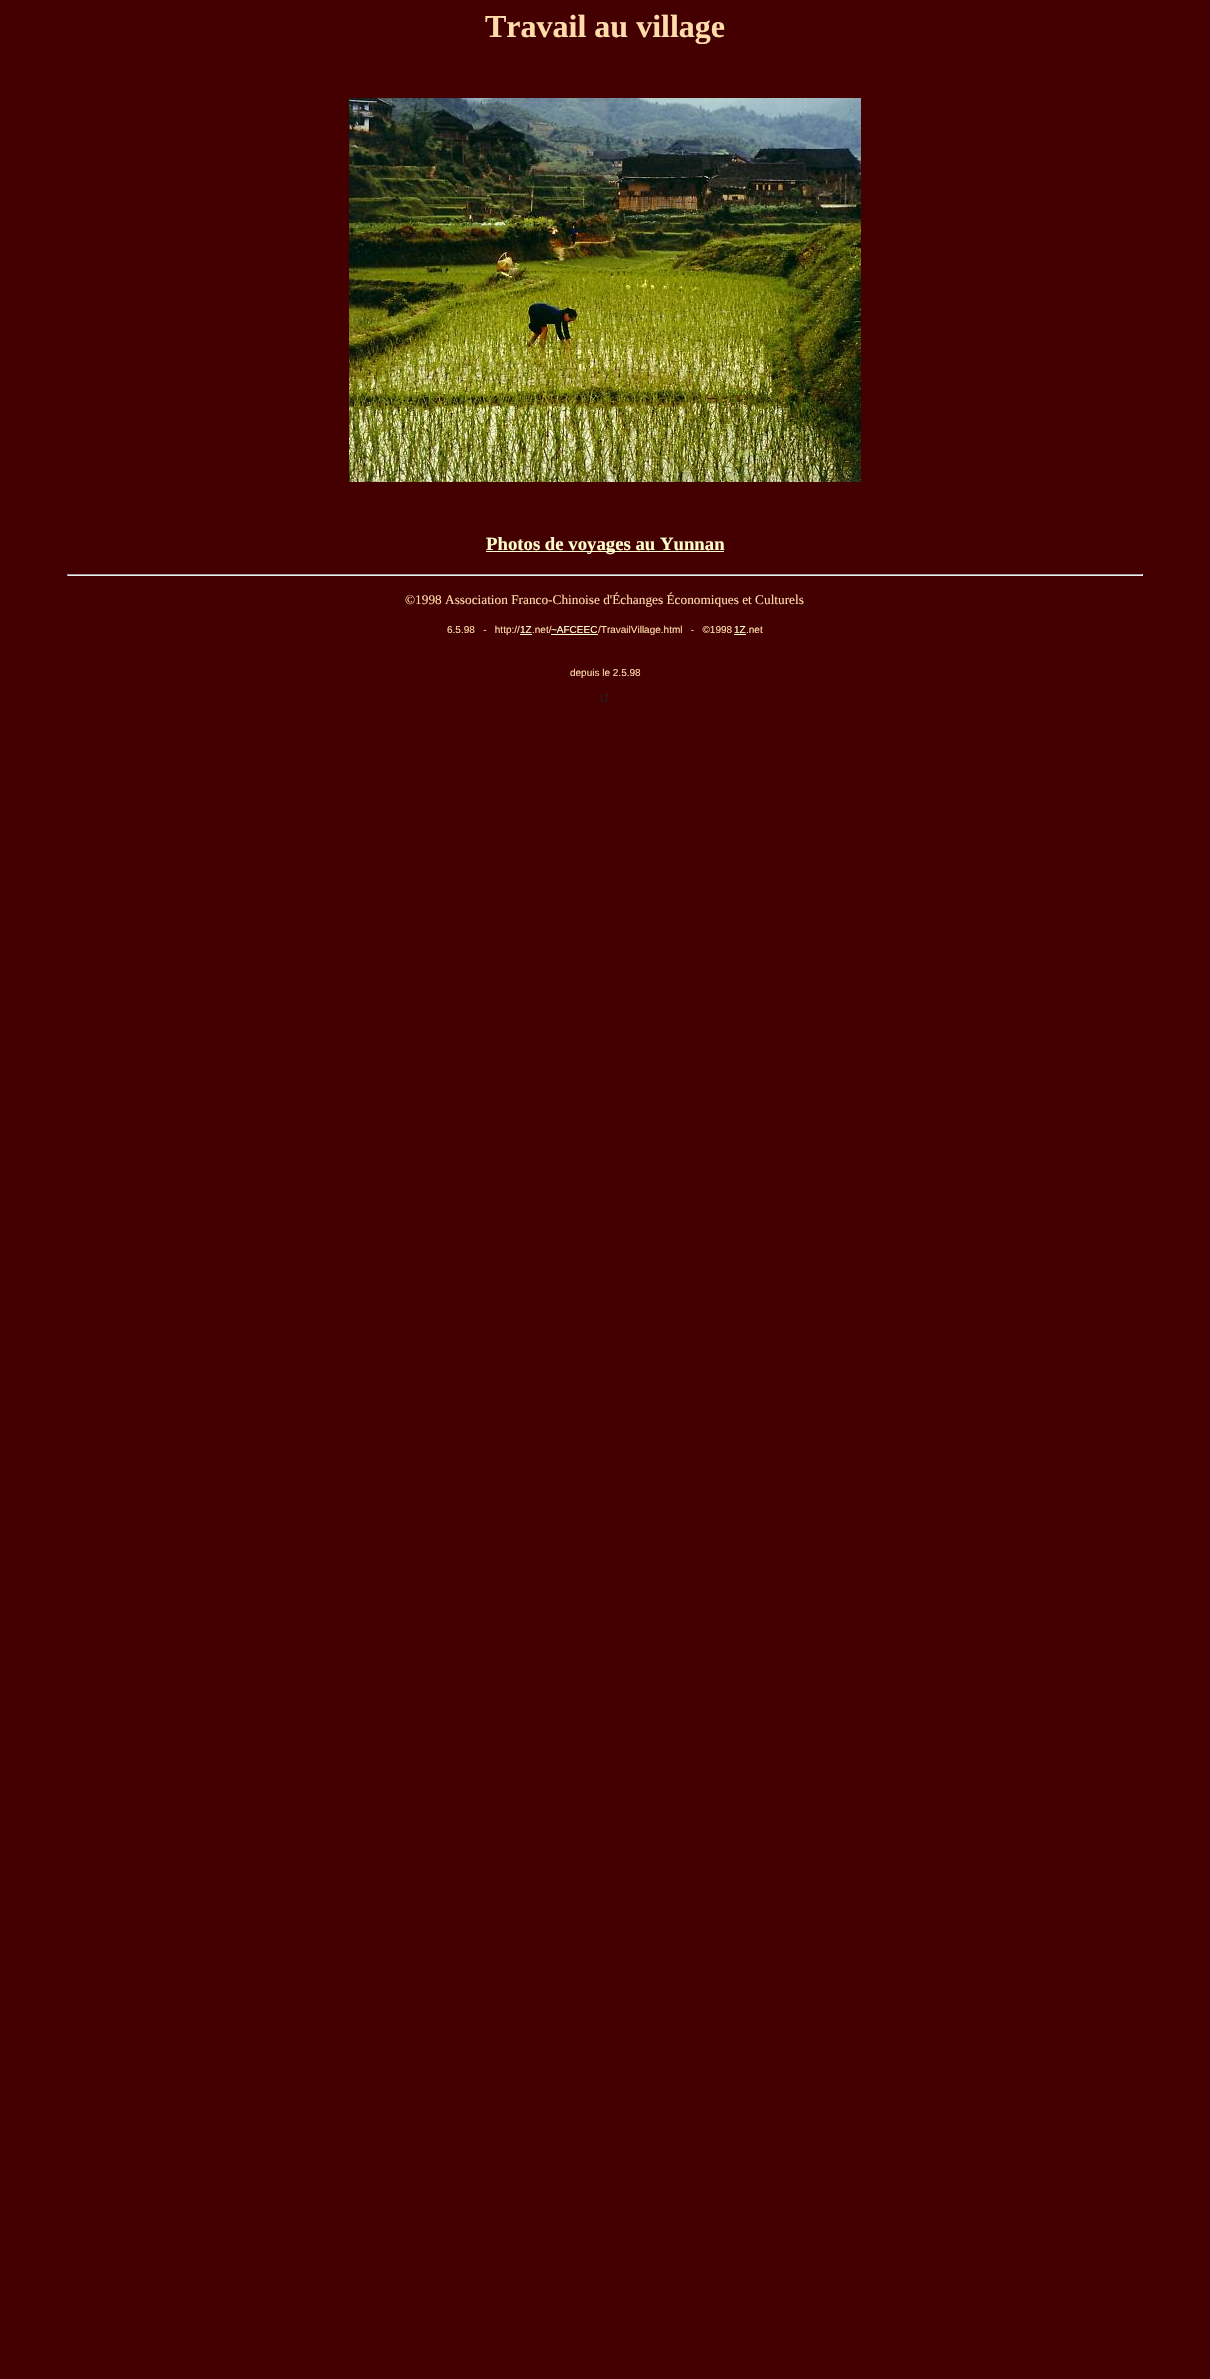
void draw(SkCanvas* canvas) {
  SkPaint paint;
  paint.setAntiAlias(true);
  auto face = [&](const char* family, int weight, float size, bool italic = false) {
    SkFontStyle style(weight, SkFontStyle::kNormal_Width,
      italic ? SkFontStyle::kItalic_Slant : SkFontStyle::kUpright_Slant);
    SkFont result(fontMgr->matchFamilyStyle(family, style), size);
    result.setSubpixel(true);
    return result;
  };
  auto paste = [&](const char* path, float x, float y, float w, float h) {
    auto image = SkImages::DeferredFromEncodedData(SkData::MakeFromFileName(path));
    canvas->drawImageRect(image, SkRect::MakeXYWH(x, y, w, h), SkSamplingOptions());
  };
  canvas->clear(0xff440000);
  paste("img/1.png", 349, 98, 512, 384);
  {
    const struct { float x, y, w, h; SkColor color; } items[] = {
      {486, 551, 238, 1, 0xffffffcc},
      {67, 574, 1076, 1, 0xff9f9f9f},
      {1142, 574, 1, 2, 0xffeeeeee},
      {67, 575, 1076, 1, 0xffeeeeee},
      {67, 574, 1, 2, 0xff9f9f9f},
      {520, 634, 12, 1, 0xffffffcc},
      {551, 634, 47, 1, 0xffffffcc},
      {734, 634, 12, 1, 0xffffffcc},
    };
    for (auto [x, y, w, h, color] : items) {
      paint.setColor(color);
      canvas->drawRect(SkRect::MakeXYWH(x, y, w, h), paint);
    }
  }
  paste("img/2.png", 601, 694, 8, 8);
  auto f0 = face("Liberation Serif", 700, 32);
  paint.setColor(0xffffddaa);
  canvas->drawString("Travail au village", 485, 37, f0, paint);
  auto f1 = face("Liberation Serif", 700, 18.75f);
  paint.setColor(0xffffffcc);
  canvas->drawString("Photos de voyages au Yunnan", 486, 550, f1, paint);
  auto f2 = face("Liberation Serif", 400, 13.3f);
  paint.setColor(0xffffddaa);
  canvas->drawString("©1998 Association Franco-Chinoise d'Échanges Économiques et Culturels", 405, 604, f2, paint);
  auto f3 = face("Liberation Sans", 400, 10);
  canvas->drawString("6.5.98   -   http://", 447, 633, f3, paint);
  paint.setColor(0xffffffcc);
  canvas->drawString("1Z", 520, 633, f3, paint);
  paint.setColor(0xffffddaa);
  canvas->drawString(".net/", 532, 633, f3, paint);
  paint.setColor(0xffffffcc);
  canvas->drawString("~AFCEEC", 551, 633, f3, paint);
  paint.setColor(0xffffddaa);
  canvas->drawString("/TravailVillage.html   -   ©1998", 598, 633, f3, paint);
  paint.setColor(0xffffffcc);
  canvas->drawString("1Z", 734, 633, f3, paint);
  paint.setColor(0xffffddaa);
  canvas->drawString(".net", 746, 633, f3, paint);
  canvas->drawString("depuis le 2.5.98", 570, 676, f3, paint);
}
